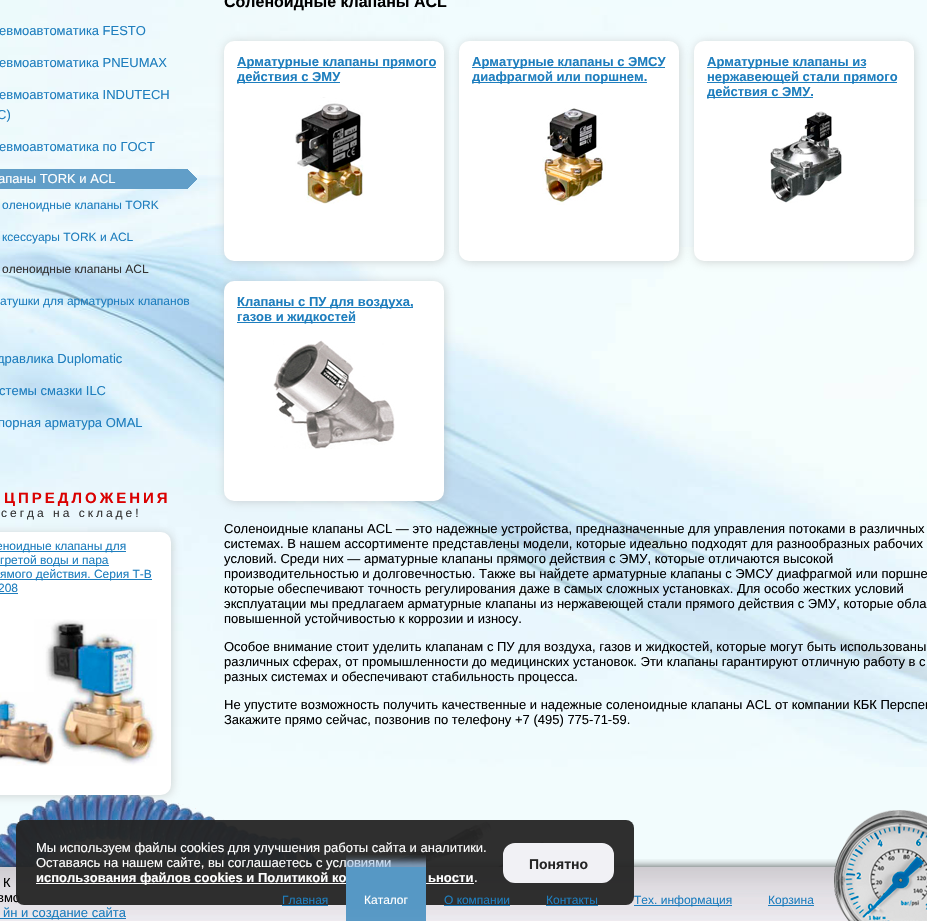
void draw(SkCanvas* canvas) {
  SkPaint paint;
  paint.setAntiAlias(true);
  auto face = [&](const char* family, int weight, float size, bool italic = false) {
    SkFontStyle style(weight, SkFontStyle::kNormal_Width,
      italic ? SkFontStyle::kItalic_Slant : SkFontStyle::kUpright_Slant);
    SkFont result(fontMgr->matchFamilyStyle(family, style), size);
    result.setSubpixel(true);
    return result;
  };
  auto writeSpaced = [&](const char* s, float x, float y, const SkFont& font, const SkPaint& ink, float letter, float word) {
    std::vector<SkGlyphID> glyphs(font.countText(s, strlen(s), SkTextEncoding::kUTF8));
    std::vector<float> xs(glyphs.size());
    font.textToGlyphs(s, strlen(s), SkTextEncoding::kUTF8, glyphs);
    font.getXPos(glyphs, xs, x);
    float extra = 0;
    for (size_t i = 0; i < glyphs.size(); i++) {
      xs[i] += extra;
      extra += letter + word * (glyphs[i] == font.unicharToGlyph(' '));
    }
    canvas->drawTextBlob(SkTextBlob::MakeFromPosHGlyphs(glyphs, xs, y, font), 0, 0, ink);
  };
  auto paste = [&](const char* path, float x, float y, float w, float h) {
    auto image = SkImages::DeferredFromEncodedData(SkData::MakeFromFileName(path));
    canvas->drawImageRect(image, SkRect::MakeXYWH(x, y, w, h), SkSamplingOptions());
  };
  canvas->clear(0xfff2fcfd);
  paste("img/1.png", 0, 0, 927, 767);
  paste("img/2.png", 0, 169, 197, 20);
  paste("img/9.png", 0, 795, 544, 72);
  paint.setColor(0x80aaaaaa);
  paint.setMaskFilter(SkMaskFilter::MakeBlur(kNormal_SkBlurStyle, 5));
  canvas->drawRoundRect(SkRect::MakeXYWH(-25, 533, 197, 263), 10, 10, paint);
  paint.setMaskFilter(nullptr);
  paint.setColor(0xffffffff);
  canvas->drawRoundRect(SkRect::MakeXYWH(-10, 532, 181, 263), 10, 10, paint);
  {
    const struct { float x, y, w, h; SkColor color; } items[] = {
      {0, 551, 126, 1, 0xff1e7ebe},
      {0, 565, 109, 1, 0xff1e7ebe},
      {0, 579, 152, 1, 0xff1e7ebe},
      {0, 593, 18, 1, 0xff1e7ebe},
    };
    for (auto [x, y, w, h, color] : items) {
      paint.setColor(color);
      canvas->drawRect(SkRect::MakeXYWH(x, y, w, h), paint);
    }
  }
  paste("img/3.png", 0, 619, 157, 147);
  paint.setColor(0x80aaaaaa);
  paint.setMaskFilter(SkMaskFilter::MakeBlur(kNormal_SkBlurStyle, 5));
  canvas->drawRoundRect(SkRect::MakeXYWH(225, 42, 220, 220), 10, 10, paint);
  paint.setMaskFilter(nullptr);
  paint.setColor(0xffffffff);
  canvas->drawRoundRect(SkRect::MakeXYWH(224, 41, 220, 220), 10, 10, paint);
  paint.setColor(0xff1e7ebe);
  canvas->drawRect(SkRect::MakeXYWH(237, 67, 199, 1), paint);
  canvas->drawRect(SkRect::MakeXYWH(237, 82, 103, 1), paint);
  paste("img/4.png", 295, 97, 69, 107);
  paint.setColor(0x80aaaaaa);
  paint.setMaskFilter(SkMaskFilter::MakeBlur(kNormal_SkBlurStyle, 5));
  canvas->drawRoundRect(SkRect::MakeXYWH(460, 42, 220, 220), 10, 10, paint);
  paint.setMaskFilter(nullptr);
  paint.setColor(0xffffffff);
  canvas->drawRoundRect(SkRect::MakeXYWH(459, 41, 220, 220), 10, 10, paint);
  paint.setColor(0xff1e7ebe);
  canvas->drawRect(SkRect::MakeXYWH(472, 67, 193, 1), paint);
  canvas->drawRect(SkRect::MakeXYWH(472, 82, 175, 1), paint);
  paste("img/5.png", 542, 108, 64, 97);
  paint.setColor(0x80aaaaaa);
  paint.setMaskFilter(SkMaskFilter::MakeBlur(kNormal_SkBlurStyle, 5));
  canvas->drawRoundRect(SkRect::MakeXYWH(695, 42, 220, 220), 10, 10, paint);
  paint.setMaskFilter(nullptr);
  paint.setColor(0xffffffff);
  canvas->drawRoundRect(SkRect::MakeXYWH(694, 41, 220, 220), 10, 10, paint);
  {
    const struct { float x, y, w, h; SkColor color; } items[] = {
      {707, 67, 159, 1, 0xff1e7ebe},
      {707, 82, 190, 1, 0xff1e7ebe},
      {707, 97, 106, 1, 0xff1e7ebe},
    };
    for (auto [x, y, w, h, color] : items) {
      paint.setColor(color);
      canvas->drawRect(SkRect::MakeXYWH(x, y, w, h), paint);
    }
  }
  paste("img/6.png", 770, 111, 72, 92);
  paint.setColor(0x80aaaaaa);
  paint.setMaskFilter(SkMaskFilter::MakeBlur(kNormal_SkBlurStyle, 5));
  canvas->drawRoundRect(SkRect::MakeXYWH(225, 282, 220, 220), 10, 10, paint);
  paint.setMaskFilter(nullptr);
  paint.setColor(0xffffffff);
  canvas->drawRoundRect(SkRect::MakeXYWH(224, 281, 220, 220), 10, 10, paint);
  paint.setColor(0xff1e7ebe);
  canvas->drawRect(SkRect::MakeXYWH(237, 307, 176, 1), paint);
  canvas->drawRect(SkRect::MakeXYWH(237, 322, 118, 1), paint);
  paste("img/7.png", 273, 340, 122, 109);
  paste("img/8.png", 0, 859, 849, 62);
  paste("img/10.png", 834, 810, 93, 111);
  {
    const struct { float x, y, w, h; SkColor color; } items[] = {
      {0, 918, 126, 1, 0xff1e7ebe},
      {282, 905, 46, 1, 0xff1e7ebe},
      {444, 905, 66, 1, 0xff1e7ebe},
      {546, 905, 52, 1, 0xff1e7ebe},
      {634, 905, 98, 1, 0xff1e7ebe},
      {768, 905, 46, 1, 0xff1e7ebe},
    };
    for (auto [x, y, w, h, color] : items) {
      paint.setColor(color);
      canvas->drawRect(SkRect::MakeXYWH(x, y, w, h), paint);
    }
  }
  auto f0 = face("Liberation Sans", 400, 13);
  {
    const struct { const char* s; float x, y; } items[] = {
      {"евмоавтоматика FESTO", -1, 35},
      {"евмоавтоматика PNEUMAX", -1, 67},
      {"евмоавтоматика INDUTECH", -1, 99},
      {"C)", -3, 119},
      {"евмоавтоматика по ГОСТ", -1, 151},
    };
    for (auto [s, x, y] : items) {
      canvas->drawString(s, x, y, f0, paint);
    }
  }
  paint.setColor(0xffffffff);
  canvas->drawString("апаны TORK и ACL", -2, 183, f0, paint);
  auto f1 = face("Liberation Sans", 400, 12);
  paint.setColor(0xff1e7ebe);
  canvas->drawString("оленоидные клапаны TORK", 2, 209, f1, paint);
  canvas->drawString("ксессуары TORK и ACL", 2, 241, f1, paint);
  paint.setColor(0xff333333);
  canvas->drawString("оленоидные клапаны ACL", 2, 273, f1, paint);
  paint.setColor(0xff1e7ebe);
  canvas->drawString("атушки для арматурных клапанов", 0, 305, f1, paint);
  {
    const struct { const char* s; float x, y; } items[] = {
      {"дравлика Duplomatic", -3, 363},
      {"стемы смазки ILC", -1, 395},
      {"порная арматура OMAL", -2, 427},
    };
    for (auto [s, x, y] : items) {
      canvas->drawString(s, x, y, f0, paint);
    }
  }
  auto f2 = face("Liberation Sans", 700, 15);
  paint.setColor(0xffda0000);
  writeSpaced("ЦПРЕДЛОЖЕНИЯ", 4, 503, f2, paint, 3, 0);
  paint.setColor(0xff333333);
  writeSpaced("сегда на складе!", 1, 517, f1, paint, 3, 0);
  paint.setColor(0xff1e7ebe);
  {
    const struct { const char* s; float x, y; } items[] = {
      {"еноидные клапаны для", -4, 550},
      {"гретой воды и пара", 0, 564},
      {"ямого действия. Серия T-B", 0, 578},
      {"208", -2, 592},
    };
    for (auto [s, x, y] : items) {
      canvas->drawString(s, x, y, f1, paint);
    }
  }
  auto f3 = face("Liberation Sans", 700, 16);
  paint.setColor(0xff000000);
  canvas->drawString("Соленоидные клапаны ACL", 224, 7, f3, paint);
  auto f4 = face("Liberation Sans", 700, 13);
  paint.setColor(0xff1e7ebe);
  {
    const struct { const char* s; float x, y; } items[] = {
      {"Арматурные клапаны прямого", 237, 66},
      {"действия с ЭМУ", 237, 81},
      {"Арматурные клапаны с ЭМСУ", 472, 66},
      {"диафрагмой или поршнем.", 472, 81},
      {"Арматурные клапаны из", 707, 66},
      {"нержавеющей стали прямого", 707, 81},
      {"действия с ЭМУ.", 707, 96},
      {"Клапаны с ПУ для воздуха,", 237, 306},
      {"газов и жидкостей", 237, 321},
    };
    for (auto [s, x, y] : items) {
      canvas->drawString(s, x, y, f4, paint);
    }
  }
  paint.setColor(0xff000000);
  {
    const struct { const char* s; float x, y; } items[] = {
      {"Соленоидные клапаны ACL — это надежные устройства, предназначенные для управления потоками в различных", 224, 533},
      {"системах. В нашем ассортименте представлены модели, которые идеально подходят для разнообразных рабочих", 224, 548},
      {"условий. Среди них — арматурные клапаны прямого действия с ЭМУ, которые отличаются высокой", 224, 563},
      {"производительностью и долговечностью. Также вы найдете арматурные клапаны с ЭМСУ диафрагмой или поршне", 224, 578},
      {"которые обеспечивают точность регулирования даже в самых сложных установках. Для особо жестких условий", 224, 593},
      {"эксплуатации мы предлагаем арматурные клапаны из нержавеющей стали прямого действия с ЭМУ, которые обла", 224, 608},
      {"повышенной устойчивостью к коррозии и износу.", 224, 623},
      {"Особое внимание стоит уделить клапанам с ПУ для воздуха, газов и жидкостей, которые могут быть использованы", 224, 651},
      {"различных сферах, от промышленности до медицинских установок. Эти клапаны гарантируют отличную работу в с", 224, 666},
      {"разных системах и обеспечивают стабильность процесса.", 224, 681},
      {"Не упустите возможность получить качественные и надежные соленоидные клапаны ACL от компании КБК Перспек", 224, 709},
      {"Закажите прямо сейчас, позвонив по телефону +7 (495) 775-71-59.", 224, 724},
      {"К", 3, 887},
      {"вмо", -3, 902},
    };
    for (auto [s, x, y] : items) {
      canvas->drawString(s, x, y, f0, paint);
    }
  }
  paint.setColor(0xf2242424);
  canvas->drawRoundRect(SkRect::MakeXYWH(16, 820, 618, 85), 8, 8, paint);
  paint.setColor(0xfff1f1f5);
  canvas->drawRoundRect(SkRect::MakeXYWH(504, 844, 109, 38), 11, 11, paint);
  paint.setStroke(true);
  paint.setStrokeWidth(2);
  canvas->drawRoundRect(SkRect::MakeXYWH(504, 844, 109, 38), 11, 11, paint);
  auto f5 = face("Liberation Sans", 700, 14);
  paint.setStroke(false);
  paint.setColor(0xff242424);
  canvas->drawString("Понятно", 529, 869, f5, paint);
  paint.setColor(0xffffffff);
  canvas->drawString(".", 474, 882, f0, paint);
  canvas->drawString("ьности", 428, 882, f4, paint);
  canvas->drawRect(SkRect::MakeXYWH(36, 883, 438, 1), paint);
  canvas->drawString("использования файлов cookies и Политикой ко", 36, 882, f4, paint);
  canvas->drawString("Оставаясь на нашем сайте, вы соглашаетесь с условиями", 36, 867, f0, paint);
  canvas->drawString("Мы используем файлы cookies для улучшения работы сайта и аналитики.", 36, 852, f0, paint);
  paint.setColor(0xff1e7ebe);
  canvas->drawString("йн и создание сайта", 3, 917, f0, paint);
  canvas->drawString("Главная", 282, 904, f1, paint);
  paste("img/11.png", 346, 855, 80, 66);
  paint.setColor(0xffffffff);
  canvas->drawString("Каталог", 364, 904, f1, paint);
  paint.setColor(0xff1e7ebe);
  {
    const struct { const char* s; float x, y; } items[] = {
      {"О компании", 444, 904},
      {"Контакты", 546, 904},
      {"Тех. информация", 634, 904},
      {"Корзина", 768, 904},
    };
    for (auto [s, x, y] : items) {
      canvas->drawString(s, x, y, f1, paint);
    }
  }
}
